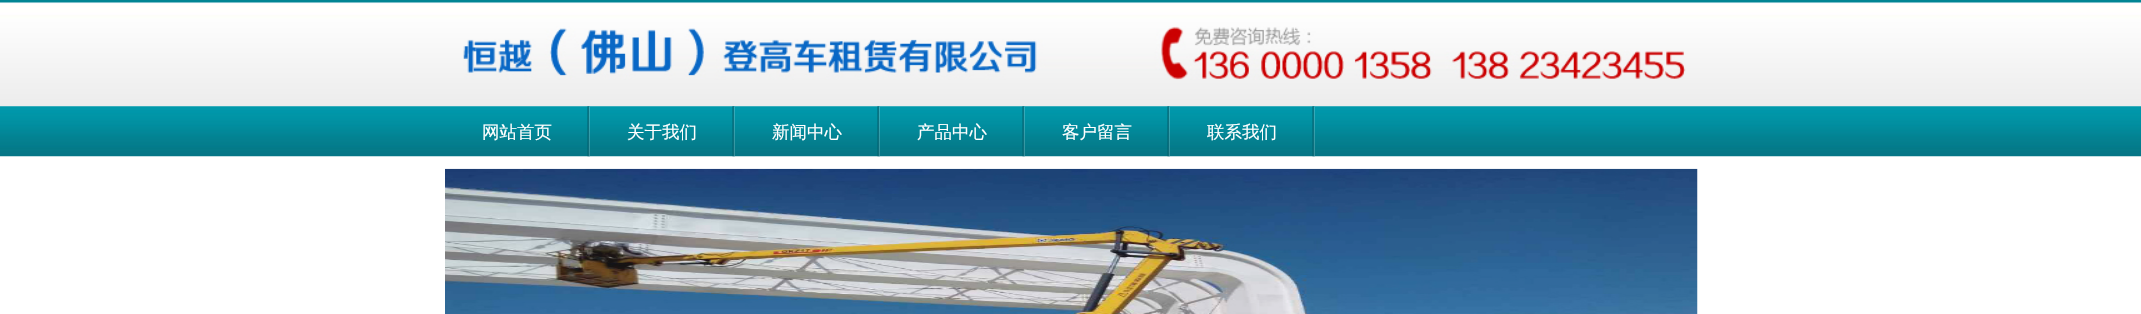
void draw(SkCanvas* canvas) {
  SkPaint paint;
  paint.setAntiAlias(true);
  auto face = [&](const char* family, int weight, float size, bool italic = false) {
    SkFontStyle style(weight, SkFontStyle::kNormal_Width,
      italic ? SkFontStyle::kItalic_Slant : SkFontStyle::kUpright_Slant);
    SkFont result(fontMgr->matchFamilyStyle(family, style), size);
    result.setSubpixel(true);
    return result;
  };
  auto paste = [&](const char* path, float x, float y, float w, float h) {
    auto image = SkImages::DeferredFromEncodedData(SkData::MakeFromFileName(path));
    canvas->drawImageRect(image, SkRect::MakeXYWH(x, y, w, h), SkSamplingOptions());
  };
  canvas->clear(0xffffffff);
  paste("img/1.png", 0, 0, 2141, 107);
  paste("img/2.png", 463, 26, 1223, 54);
  paste("img/3.png", 0, 106, 2141, 51);
  paste("img/4.png", 587, 106, 3, 51);
  paste("img/4.png", 732, 106, 3, 51);
  paste("img/4.png", 877, 106, 3, 51);
  paste("img/4.png", 1022, 106, 3, 51);
  paste("img/4.png", 1167, 106, 3, 51);
  paste("img/4.png", 1312, 106, 3, 51);
  paste("img/5.png", 445, 168, 1253, 146);
  auto f0 = face("WenQuanYi Zen Hei", 500, 17.5f);
  paint.setColor(0xffffffff);
  {
    const struct { const char* s; float x, y; } items[] = {
      {"网站首页", 482, 138},
      {"关于我们", 627, 138},
      {"新闻中心", 772, 138},
      {"产品中心", 917, 138},
      {"客户留言", 1062, 138},
      {"联系我们", 1207, 138},
    };
    for (auto [s, x, y] : items) {
      canvas->drawString(s, x, y, f0, paint);
    }
  }
}
